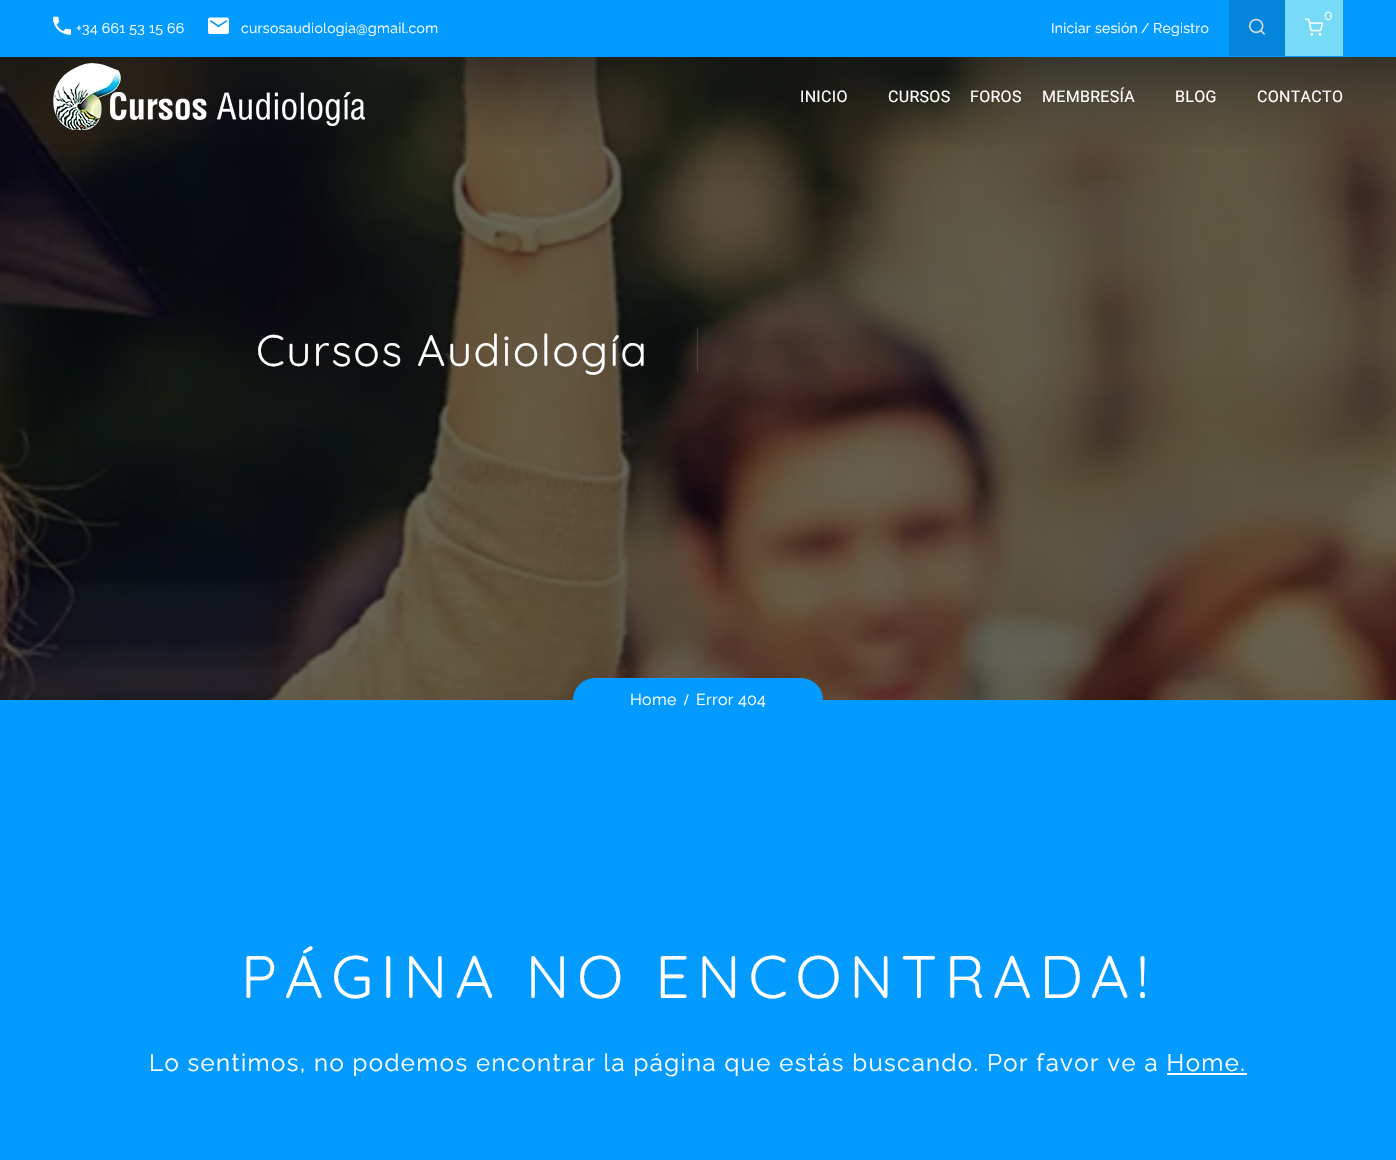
void draw(SkCanvas* canvas) {
  SkPaint paint;
  paint.setAntiAlias(true);
  auto face = [&](const char* family, int weight, float size, bool italic = false) {
    SkFontStyle style(weight, SkFontStyle::kNormal_Width,
      italic ? SkFontStyle::kItalic_Slant : SkFontStyle::kUpright_Slant);
    SkFont result(fontMgr->matchFamilyStyle(family, style), size);
    result.setSubpixel(true);
    return result;
  };
  auto writeSpaced = [&](const char* s, float x, float y, const SkFont& font, const SkPaint& ink, float letter, float word) {
    std::vector<SkGlyphID> glyphs(font.countText(s, strlen(s), SkTextEncoding::kUTF8));
    std::vector<float> xs(glyphs.size());
    font.textToGlyphs(s, strlen(s), SkTextEncoding::kUTF8, glyphs);
    font.getXPos(glyphs, xs, x);
    float extra = 0;
    for (size_t i = 0; i < glyphs.size(); i++) {
      xs[i] += extra;
      extra += letter + word * (glyphs[i] == font.unicharToGlyph(' '));
    }
    canvas->drawTextBlob(SkTextBlob::MakeFromPosHGlyphs(glyphs, xs, y, font), 0, 0, ink);
  };
  auto paste = [&](const char* path, float x, float y, float w, float h) {
    auto image = SkImages::DeferredFromEncodedData(SkData::MakeFromFileName(path));
    canvas->drawImageRect(image, SkRect::MakeXYWH(x, y, w, h), SkSamplingOptions());
  };
  canvas->clear(0xff039bff);
  paint.setColor(0xff77daf6);
  canvas->drawRect(SkRect::MakeXYWH(1285, 0, 58, 56), paint);
  paste("img/1.png", 1305, 18, 18, 18);
  paste("img/2.png", 53, 16, 18, 19);
  paste("img/3.png", 208, 17, 21, 17);
  paint.setColor(0xff0385db);
  canvas->drawRect(SkRect::MakeXYWH(1229, 0, 56, 56), paint);
  paste("img/4.png", 1249, 18, 16, 17);
  paste("img/7.png", 0, 57, 1396, 643);
  paste("img/5.png", 0, 57, 1396, 88);
  paste("img/6.png", 53, 63, 312, 67);
  paint.setColor(0x26ffffff);
  canvas->drawRect(SkRect::MakeXYWH(697, 328, 1, 44), paint);
  paint.setColor(0xff039bff);
  canvas->drawRoundRect(SkRect::MakeXYWH(573, 678, 250, 44), 22, 22, paint);
  paint.setColor(0xffffffff);
  canvas->drawRect(SkRect::MakeXYWH(1167, 1073, 80, 2), paint);
  auto f0 = face("Raleway", 100, 14);
  {
    const struct { const char* s; float x, y; } items[] = {
      {"0", 1324, 20},
      {"+34 661 53 15 66", 76, 33},
      {"cursosaudiologia@gmail.com", 241, 33},
      {"Iniciar sesión", 1051, 33},
      {"/", 1141, 33},
      {"Registro", 1153, 33},
    };
    for (auto [s, x, y] : items) {
      writeSpaced(s, x, y, f0, paint, 0.3f, 0);
    }
  }
  auto f1 = face("Roboto", 400, 16);
  {
    const struct { const char* s; float x, y; } items[] = {
      {"INICIO", 800, 102},
      {"CURSOS", 888, 102},
      {"FOROS", 970, 102},
      {"MEMBRESÍA", 1042, 102},
      {"BLOG", 1175, 102},
      {"CONTACTO", 1257, 102},
    };
    for (auto [s, x, y] : items) {
      writeSpaced(s, x, y, f1, paint, 0.3f, 0);
    }
  }
  auto f2 = face("Quicksand", 300, 44);
  writeSpaced("Cursos Audiología", 256, 366, f2, paint, 1.5f, 0);
  auto f3 = face("Raleway", 100, 16);
  writeSpaced("Home", 630, 705, f3, paint, 0.3f, 0);
  auto f4 = face("Liberation Serif", 700, 16);
  writeSpaced("/", 684, 705, f4, paint, 0.3f, 0);
  writeSpaced("Error 404", 696, 705, f3, paint, 0.3f, 0);
  auto f5 = face("Quicksand", 300, 60);
  writeSpaced("PÁGINA NO ENCONTRADA!", 241, 998, f5, paint, 7.8f, 0);
  auto f6 = face("Raleway", 100, 24);
  writeSpaced("Lo sentimos, no podemos encontrar la página que estás buscando. Por favor ve a Home.", 149, 1071, f6, paint, 1.4f, 0);
}
